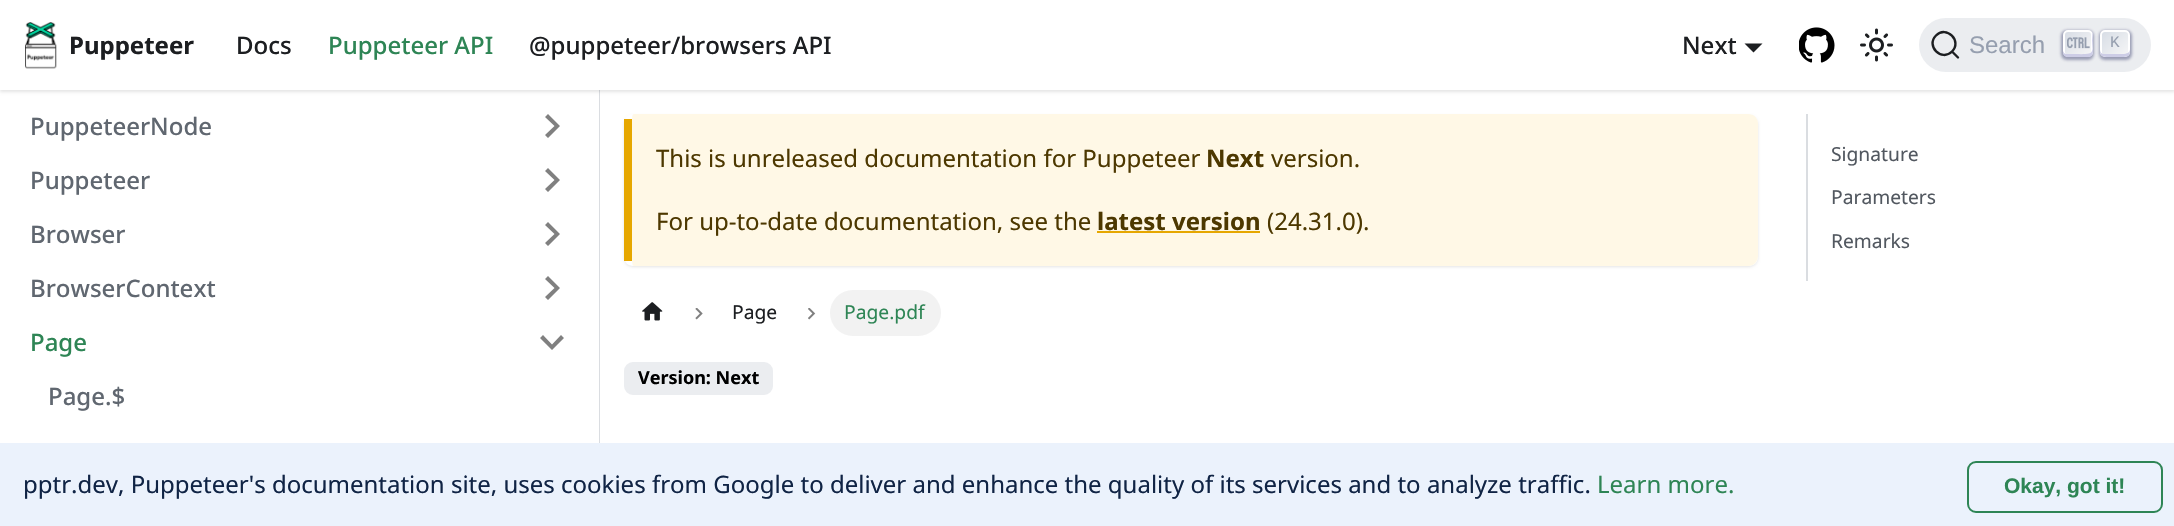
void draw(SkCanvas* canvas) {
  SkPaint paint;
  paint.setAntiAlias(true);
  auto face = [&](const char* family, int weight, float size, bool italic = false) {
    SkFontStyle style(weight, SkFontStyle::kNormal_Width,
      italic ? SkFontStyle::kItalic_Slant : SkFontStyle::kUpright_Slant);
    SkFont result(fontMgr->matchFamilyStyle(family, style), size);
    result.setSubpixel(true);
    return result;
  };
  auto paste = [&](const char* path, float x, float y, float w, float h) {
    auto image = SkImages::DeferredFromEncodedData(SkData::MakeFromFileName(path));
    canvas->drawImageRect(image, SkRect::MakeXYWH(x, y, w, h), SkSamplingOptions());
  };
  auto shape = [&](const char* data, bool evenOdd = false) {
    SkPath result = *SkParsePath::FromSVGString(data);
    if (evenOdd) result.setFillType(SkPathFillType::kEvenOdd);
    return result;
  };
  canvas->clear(0xffffffff);
  paint.setColor(0xffdadde1);
  canvas->drawRect(SkRect::MakeXYWH(599, 90, 1, 353), paint);
  paint.setColor(0x1a000000);
  paint.setMaskFilter(SkMaskFilter::MakeBlur(kNormal_SkBlurStyle, 1.5f));
  canvas->drawRect(SkRect::MakeXYWH(0, 2, 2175, 90), paint);
  paint.setMaskFilter(nullptr);
  paint.setColor(0xffffffff);
  canvas->drawRect(SkRect::MakeXYWH(0, 0, 2174, 90), paint);
  paste("img/1.png", 25, 22, 32, 47);
  paint.setColor(0xff1c1e21);
  canvas->drawPath(shape("M1744.5 43.5H1762.5L1753.5 52.5Z"), paint);
  paste("img/2.png", 1799, 27, 36, 36);
  paste("img/3.png", 1860, 28, 33, 34);
  paint.setColor(0xffebedf0);
  canvas->drawRoundRect(SkRect::MakeXYWH(1919, 18, 232, 54), 27, 27, paint);
  paint.setStroke(true);
  paint.setStrokeWidth(2.4f);
  paint.setStrokeCap(SkPaint::kRound_Cap);
  paint.setStrokeJoin(SkPaint::kRound_Join);
  paint.setColor(0xff1c1e21);
  canvas->drawPath(shape("M1952 51.5L1958 57.5L1952 51.5C1941.5 62 1925.5 46 1936 35.5C1946.5 25 1962.5 41 1952 51.5Z"), paint);
  paint.setStroke(false);
  paint.setColor(0x661e235a);
  paint.setMaskFilter(SkMaskFilter::MakeBlur(kNormal_SkBlurStyle, 1.5f));
  canvas->drawRoundRect(SkRect::MakeXYWH(2061, 30, 33, 30), 6, 6, paint);
  paint.setMaskFilter(nullptr);
  {
    const SkColor colors[] = {0xffd5dbe4, 0xfff8f8f8};
    const float stops[] = {0, 1};
    const SkPoint ends[] = {{2063, 29}, {2092, 58}};
    paint.setShader(SkGradientShader::MakeLinear(ends, colors, stops, 2, SkTileMode::kClamp));
    paint.setAlpha(255);
  }
  canvas->drawRoundRect(SkRect::MakeXYWH(2064, 31, 28, 25), 4, 4, paint);
  paint.setStroke(true);
  paint.setStrokeWidth(2);
  paint.setStrokeCap(SkPaint::kButt_Cap);
  paint.setStrokeJoin(SkPaint::kMiter_Join);
  paint.setShader(nullptr);
  paint.setColor(0xffffffff);
  canvas->drawRoundRect(SkRect::MakeXYWH(2064, 31, 28, 25), 4, 4, paint);
  paint.setStroke(false);
  paint.setColor(0xffcdcde6);
  canvas->drawPath(shape("M2063 51V52C2063 55 2065 57 2068 57H2088C2091 57 2093 55 2093 52V35C2093 34 2093 33.5 2092.5 32.5L2092 40.5L2092.5 49C2092.5 50 2092 51 2091.5 52C2091 53 2090 53 2089 53.5C2085 54.5 2077.5 54 2072.5 54H2065.5C2064.5 53.5 2063.5 52.5 2063 51Z"), paint);
  paste("img/4.png", 2067, 37, 23, 12);
  paint.setColor(0x661e235a);
  paint.setMaskFilter(SkMaskFilter::MakeBlur(kNormal_SkBlurStyle, 1.5f));
  canvas->drawRoundRect(SkRect::MakeXYWH(2099, 30, 33, 30), 6, 6, paint);
  paint.setMaskFilter(nullptr);
  {
    const SkColor colors[] = {0xffd5dbe4, 0xfff8f8f8};
    const float stops[] = {0, 1};
    const SkPoint ends[] = {{2101, 29}, {2129, 58}};
    paint.setShader(SkGradientShader::MakeLinear(ends, colors, stops, 2, SkTileMode::kClamp));
    paint.setAlpha(255);
  }
  canvas->drawRoundRect(SkRect::MakeXYWH(2101, 31, 28, 25), 4, 4, paint);
  paint.setStroke(true);
  paint.setShader(nullptr);
  paint.setColor(0xffffffff);
  canvas->drawRoundRect(SkRect::MakeXYWH(2101, 31, 28, 25), 4, 4, paint);
  paint.setStroke(false);
  paint.setColor(0xffcdcde6);
  canvas->drawPath(shape("M2130 49.5C2129.5 52.5 2127.5 54 2122 54H2104C2101.5 54 2100.5 52.5 2100 50C2100 56.5 2102.5 57 2108.5 57H2121.5C2128 57 2130 56.5 2130 49.5Z"), paint);
  paint.setColor(0xff808080);
  canvas->drawPath(shape("M545 117L554.5 126L545 135L548 138L560 126L548 114Z"), paint);
  canvas->drawPath(shape("M545 171L554.5 180L545 189L548 192L560 180L548 168Z"), paint);
  canvas->drawPath(shape("M545 225L554.5 234L545 243L548 246L560 234L548 222Z"), paint);
  canvas->drawPath(shape("M545 279L554.5 288L545 297L548 300L560 288L548 276Z"), paint);
  canvas->drawPath(shape("M561 335L552 344.5L543 335L540 338L552 350L564 338Z"), paint);
  canvas->save();
  canvas->clipPath(shape("M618 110H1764V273H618ZM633 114H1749C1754 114 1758 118 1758 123V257C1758 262 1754 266 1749 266H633C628 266 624 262 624 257V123C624 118 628 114 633 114Z", true), true);
  paint.setColor(0x1a000000);
  paint.setMaskFilter(SkMaskFilter::MakeBlur(kNormal_SkBlurStyle, 1.5f));
  canvas->drawRoundRect(SkRect::MakeXYWH(624, 116, 1134, 151), 9, 9, paint);
  paint.setMaskFilter(nullptr);
  canvas->restore();
  paint.setColor(0xfffff8e6);
  canvas->drawPath(shape("M634 114H1748C1754 114 1758 118 1758 124V256C1758 261 1754 266 1748 266H634C632 266 632 261 632 256V124C632 118 632 114 634 114Z"), paint);
  paint.setColor(0xffe6a700);
  canvas->drawRect(SkRect::MakeXYWH(624, 119, 8, 142), paint);
  canvas->drawRect(SkRect::MakeXYWH(1097, 231, 163, 2), paint);
  paste("img/5.png", 642, 302, 21, 19);
  paste("img/6.png", 695, 308, 8, 12);
  paste("img/7.png", 808, 308, 8, 12);
  paint.setColor(0xfff2f2f2);
  canvas->drawRoundRect(SkRect::MakeXYWH(830, 290, 111, 46), 23, 23, paint);
  paint.setColor(0xffebedf0);
  canvas->drawRoundRect(SkRect::MakeXYWH(625, 363, 147, 31), 8, 8, paint);
  paint.setStroke(true);
  canvas->drawRoundRect(SkRect::MakeXYWH(625, 363, 147, 31), 8, 8, paint);
  paint.setStroke(false);
  paint.setColor(0xffdadde1);
  canvas->drawRect(SkRect::MakeXYWH(1806, 114, 2, 167), paint);
  paint.setColor(0xffebf2fc);
  canvas->drawRect(SkRect::MakeXYWH(0, 443, 2174, 83), paint);
  paint.setStroke(true);
  paint.setColor(0xff2e8555);
  canvas->drawRoundRect(SkRect::MakeXYWH(1968, 462, 194, 50), 8, 8, paint);
  auto f0 = face("Noto Sans", 700, 24);
  paint.setStroke(false);
  paint.setColor(0xff1c1e21);
  canvas->drawString("Puppeteer", 69, 54, f0, paint);
  auto f1 = face("Noto Sans", 500, 24);
  canvas->drawString("Docs", 236, 54, f1, paint);
  paint.setColor(0xff2e8555);
  canvas->drawString("Puppeteer API", 328, 54, f1, paint);
  paint.setColor(0xff1c1e21);
  canvas->drawString("@puppeteer/browsers API", 529, 54, f1, paint);
  canvas->drawString("Next", 1682, 54, f1, paint);
  auto f2 = face("Liberation Sans", 400, 24);
  paint.setColor(0xff969faf);
  canvas->drawString("Search", 1969, 53, f2, paint);
  auto f3 = face("Liberation Mono", 400, 16);
  canvas->drawString("K", 2110, 47, f3, paint);
  paint.setColor(0xff606770);
  {
    const struct { const char* s; float x, y; } items[] = {
      {"PuppeteerNode", 30, 135},
      {"Puppeteer", 30, 189},
      {"Browser", 30, 243},
      {"BrowserContext", 30, 297},
    };
    for (auto [s, x, y] : items) {
      canvas->drawString(s, x, y, f1, paint);
    }
  }
  paint.setColor(0xff2e8555);
  canvas->drawString("Page", 30, 351, f1, paint);
  paint.setColor(0xff606770);
  canvas->drawString("Page.$", 48, 405, f1, paint);
  auto f4 = face("Noto Sans", 400, 24);
  paint.setColor(0xff4d3800);
  canvas->drawString("This is unreleased documentation for Puppeteer", 656, 167, f4, paint);
  canvas->drawString("Next", 1206, 167, f0, paint);
  canvas->drawString("version.", 1271, 167, f4, paint);
  canvas->drawString("For up-to-date documentation, see the", 656, 230, f4, paint);
  canvas->drawString("latest version", 1097, 230, f0, paint);
  canvas->drawString("(24.31.0).", 1267, 230, f4, paint);
  auto f5 = face("Noto Sans", 400, 19.25f);
  paint.setColor(0xff1c1e21);
  canvas->drawString("Page", 732, 319, f5, paint);
  paint.setColor(0xff2e8555);
  canvas->drawString("Page.pdf", 844, 319, f5, paint);
  auto f6 = face("Noto Sans", 700, 18);
  paint.setColor(0xff000000);
  canvas->drawString("Version: Next", 638, 384, f6, paint);
  paint.setColor(0xff525860);
  {
    const struct { const char* s; float x, y; } items[] = {
      {"Signature", 1831, 161},
      {"Parameters", 1831, 204},
      {"Remarks", 1831, 248},
    };
    for (auto [s, x, y] : items) {
      canvas->drawString(s, x, y, f5, paint);
    }
  }
  paint.setColor(0xff102445);
  canvas->drawString("pptr.dev, Puppeteer's documentation site, uses cookies from Google to deliver and enhance the quality of its services and to analyze traffic.", 23, 493, f4, paint);
  paint.setColor(0xff2e8555);
  canvas->drawString("Learn more.", 1597, 493, f4, paint);
  auto f7 = face("Liberation Sans", 700, 21);
  canvas->drawString("Okay, got it!", 2004, 493, f7, paint);
}
